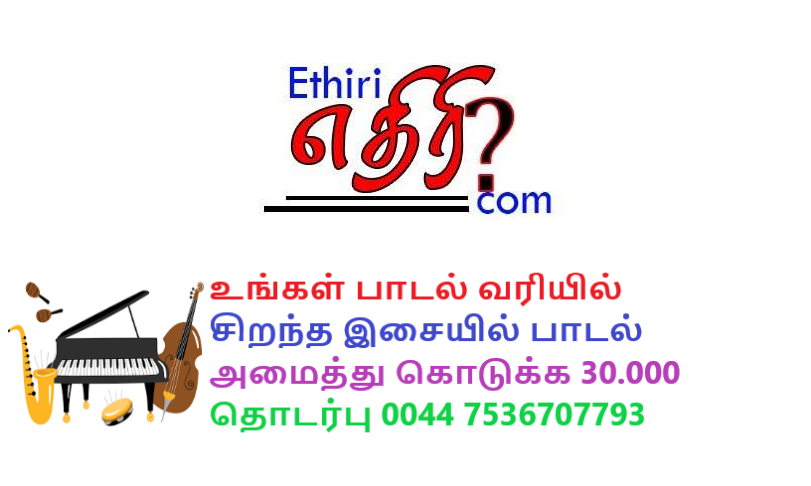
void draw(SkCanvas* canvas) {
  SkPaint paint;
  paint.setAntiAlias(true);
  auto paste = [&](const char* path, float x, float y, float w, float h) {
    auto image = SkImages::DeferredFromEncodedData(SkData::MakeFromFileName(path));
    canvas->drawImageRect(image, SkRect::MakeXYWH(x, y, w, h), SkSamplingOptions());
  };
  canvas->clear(0xffffffff);
  paste("img/1.png", 259, 62, 305, 157);
  paste("img/2.png", 8, 272, 672, 161);
}
